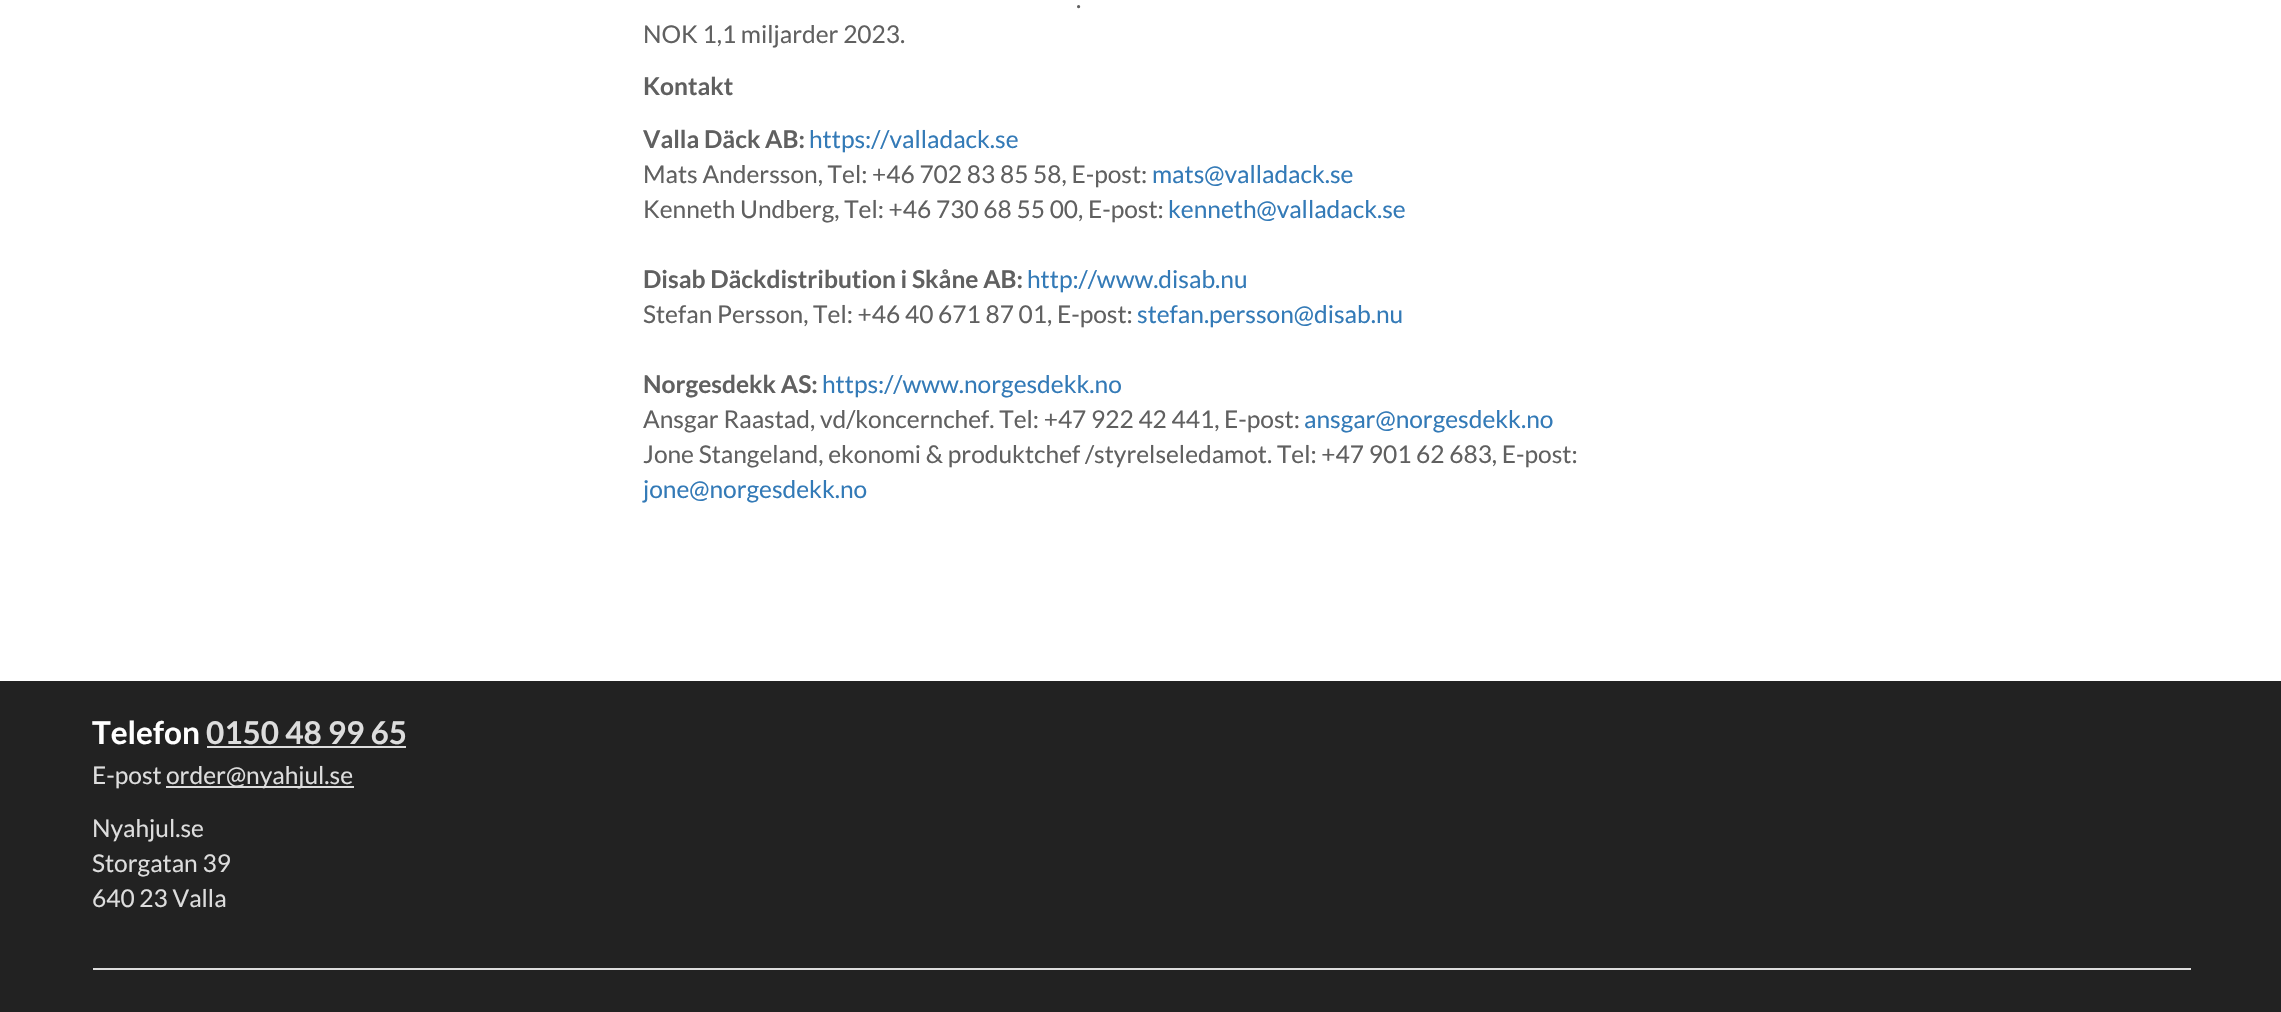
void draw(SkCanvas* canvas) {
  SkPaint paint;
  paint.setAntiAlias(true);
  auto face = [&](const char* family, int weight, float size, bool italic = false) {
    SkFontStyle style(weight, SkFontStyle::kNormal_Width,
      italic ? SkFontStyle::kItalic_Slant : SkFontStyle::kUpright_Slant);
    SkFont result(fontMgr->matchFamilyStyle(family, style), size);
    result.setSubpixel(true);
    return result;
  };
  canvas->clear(0xffffffff);
  {
    const struct { float x, y, w, h; SkColor color; } items[] = {
      {0, 681, 2281, 331, 0xff222222},
      {93, 968, 2098, 2, 0xffdddddd},
      {207, 746, 199, 2, 0xffdddddd},
      {166, 786, 188, 2, 0xffdddddd},
    };
    for (auto [x, y, w, h, color] : items) {
      paint.setColor(color);
      canvas->drawRect(SkRect::MakeXYWH(x, y, w, h), paint);
    }
  }
  auto f0 = face("Lato", 400, 24.5f);
  paint.setColor(0xff606060);
  canvas->drawString(".", 1076, 8, f0, paint);
  canvas->drawString("NOK 1,1 miljarder 2023.", 643, 43, f0, paint);
  auto f1 = face("Lato", 700, 24.5f);
  canvas->drawString("Kontakt", 643, 95, f1, paint);
  canvas->drawString("Valla Däck AB:", 643, 148, f1, paint);
  paint.setColor(0xff337ab7);
  canvas->drawString("https://valladack.se", 809, 148, f0, paint);
  paint.setColor(0xff606060);
  canvas->drawString("Mats Andersson, Tel: +46 702 83 85 58, E-post:", 643, 183, f0, paint);
  paint.setColor(0xff337ab7);
  canvas->drawString("mats@valladack.se", 1152, 183, f0, paint);
  paint.setColor(0xff606060);
  canvas->drawString("Kenneth Undberg, Tel: +46 730 68 55 00, E-post:", 643, 218, f0, paint);
  paint.setColor(0xff337ab7);
  canvas->drawString("kenneth@valladack.se", 1168, 218, f0, paint);
  paint.setColor(0xff606060);
  canvas->drawString("Disab Däckdistribution i Skåne AB:", 643, 288, f1, paint);
  paint.setColor(0xff337ab7);
  canvas->drawString("http://www.disab.nu", 1027, 288, f0, paint);
  paint.setColor(0xff606060);
  canvas->drawString("Stefan Persson, Tel: +46 40 671 87 01, E-post:", 643, 323, f0, paint);
  paint.setColor(0xff337ab7);
  canvas->drawString("stefan.persson@disab.nu", 1137, 323, f0, paint);
  paint.setColor(0xff606060);
  canvas->drawString("Norgesdekk AS:", 643, 393, f1, paint);
  paint.setColor(0xff337ab7);
  canvas->drawString("https://www.norgesdekk.no", 822, 393, f0, paint);
  paint.setColor(0xff606060);
  canvas->drawString("Ansgar Raastad, vd/koncernchef. Tel: +47 922 42 441, E-post:", 643, 428, f0, paint);
  paint.setColor(0xff337ab7);
  canvas->drawString("ansgar@norgesdekk.no", 1304, 428, f0, paint);
  paint.setColor(0xff606060);
  canvas->drawString("Jone Stangeland, ekonomi & produktchef /styrelseledamot. Tel: +47 901 62 683, E-post:", 643, 463, f0, paint);
  paint.setColor(0xff337ab7);
  canvas->drawString("jone@norgesdekk.no", 643, 498, f0, paint);
  auto f2 = face("Lato", 700, 31.5f);
  paint.setColor(0xffffffff);
  canvas->drawString("Telefon", 92, 744, f2, paint);
  paint.setColor(0xffdddddd);
  canvas->drawString("0150 48 99 65", 206, 744, f2, paint);
  {
    const struct { const char* s; float x, y; } items[] = {
      {"E-post", 92, 784},
      {"order@nyahjul.se", 166, 784},
      {"Nyahjul.se", 92, 837},
      {"Storgatan 39", 92, 872},
      {"640 23 Valla", 92, 907},
    };
    for (auto [s, x, y] : items) {
      canvas->drawString(s, x, y, f0, paint);
    }
  }
}
